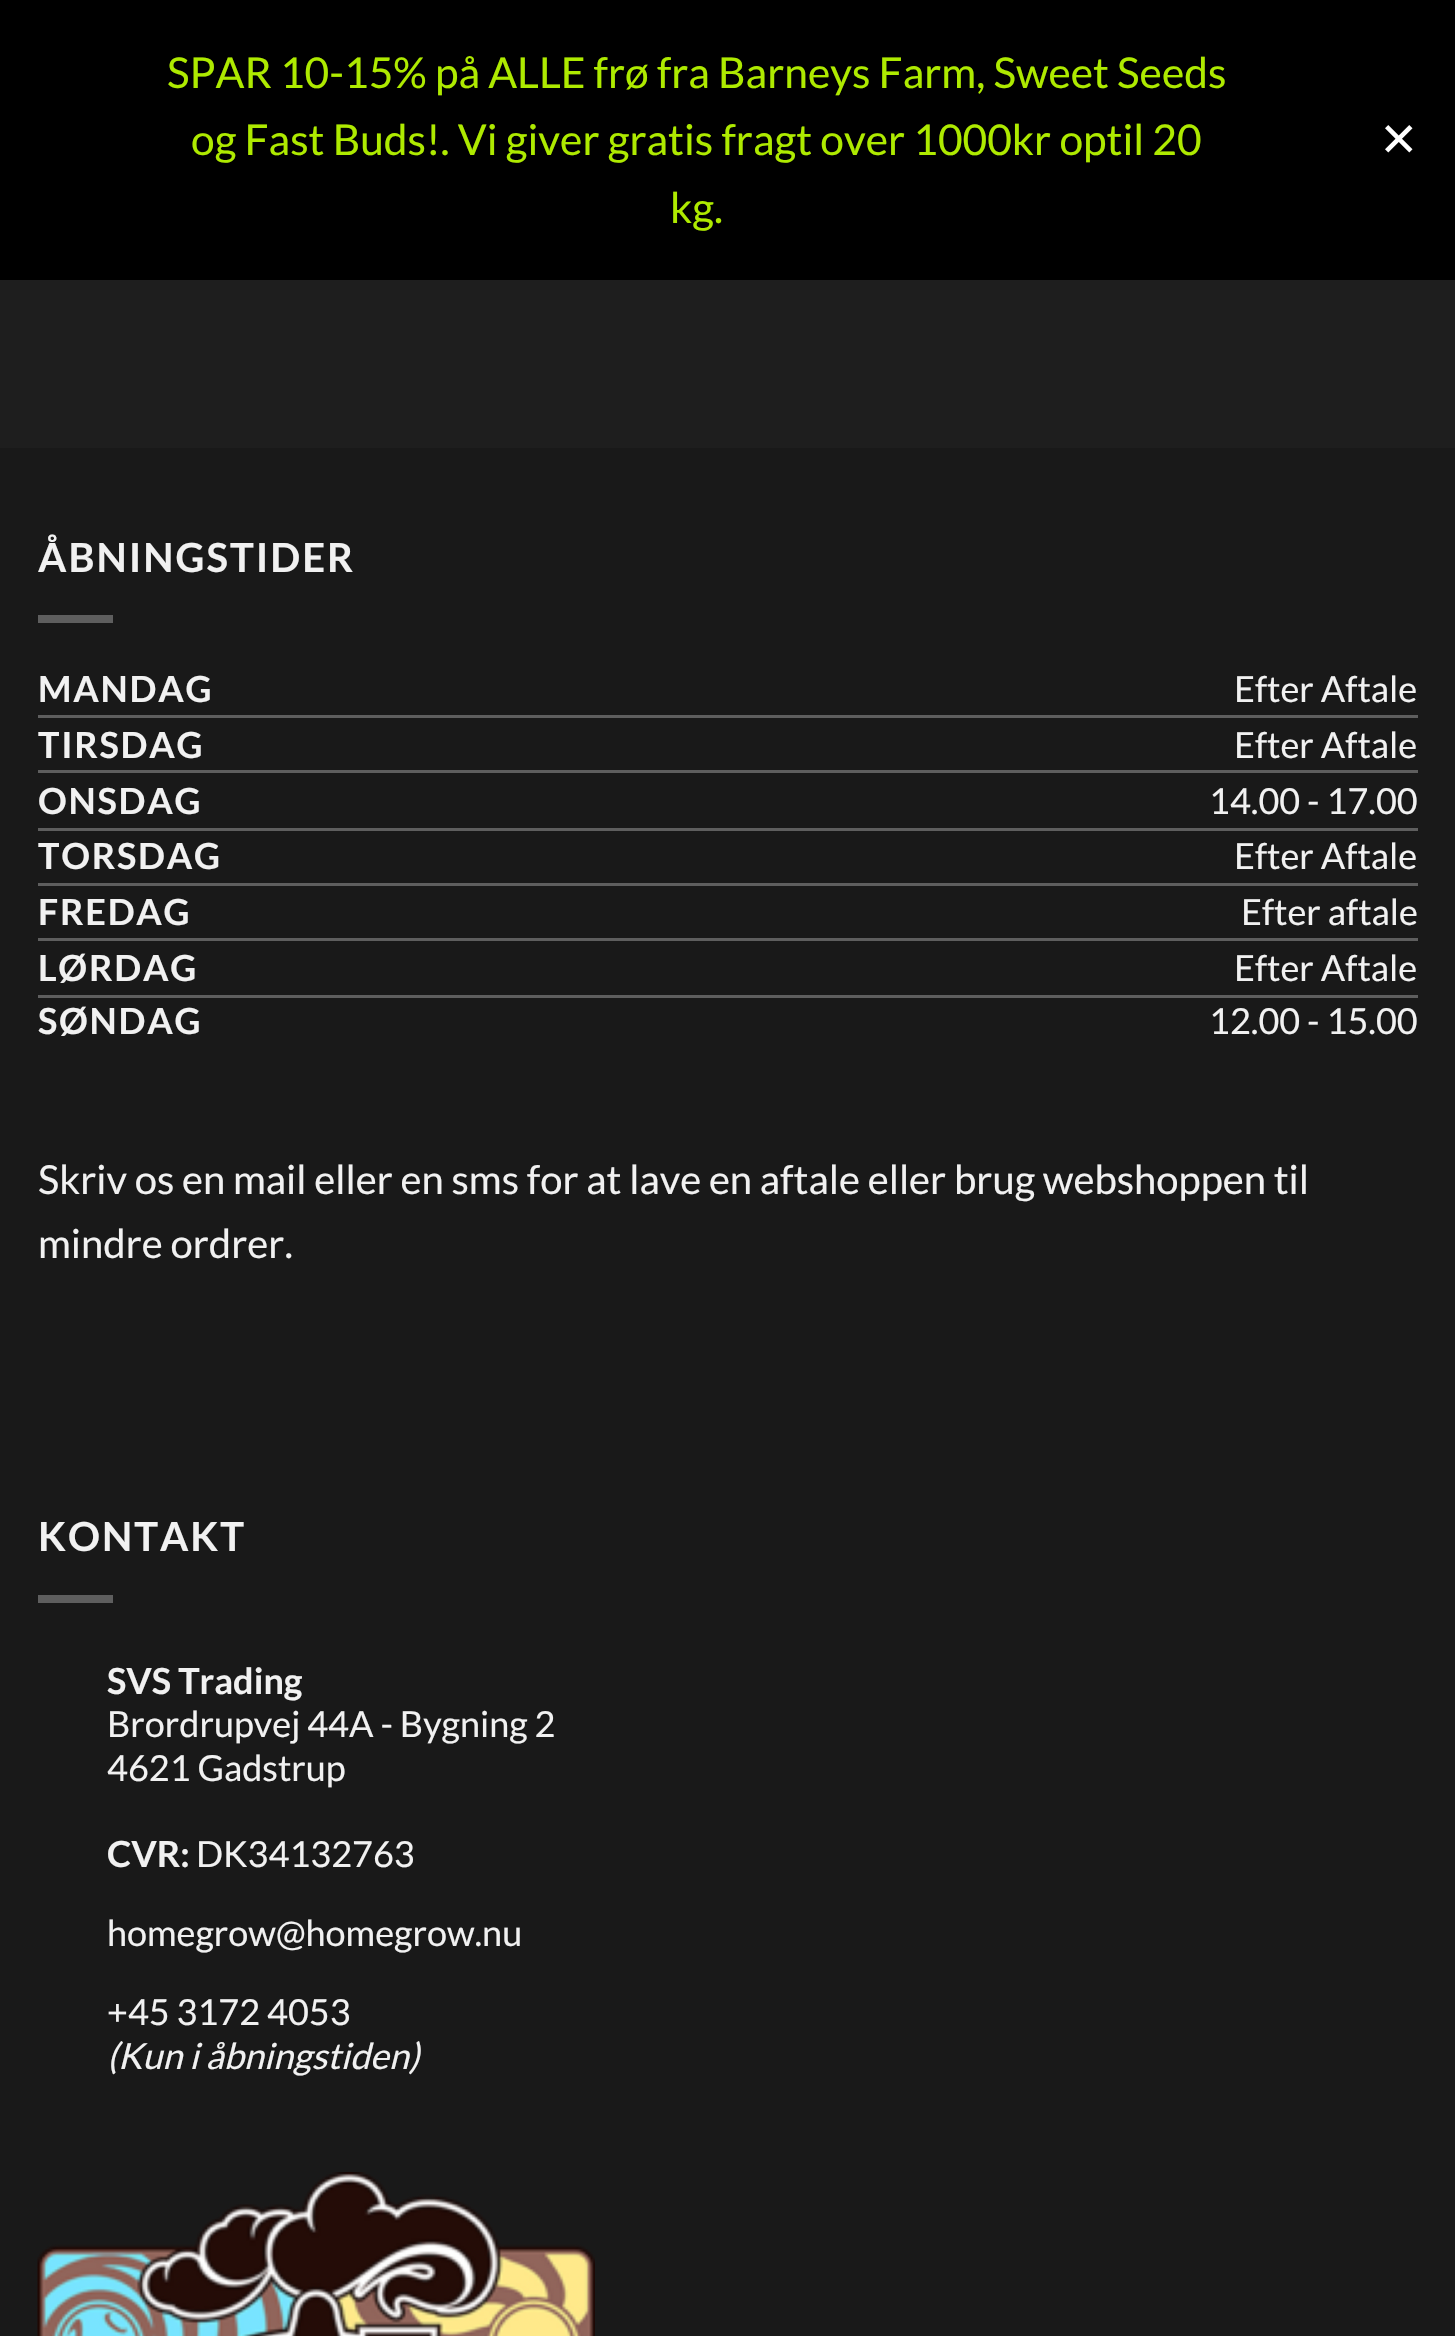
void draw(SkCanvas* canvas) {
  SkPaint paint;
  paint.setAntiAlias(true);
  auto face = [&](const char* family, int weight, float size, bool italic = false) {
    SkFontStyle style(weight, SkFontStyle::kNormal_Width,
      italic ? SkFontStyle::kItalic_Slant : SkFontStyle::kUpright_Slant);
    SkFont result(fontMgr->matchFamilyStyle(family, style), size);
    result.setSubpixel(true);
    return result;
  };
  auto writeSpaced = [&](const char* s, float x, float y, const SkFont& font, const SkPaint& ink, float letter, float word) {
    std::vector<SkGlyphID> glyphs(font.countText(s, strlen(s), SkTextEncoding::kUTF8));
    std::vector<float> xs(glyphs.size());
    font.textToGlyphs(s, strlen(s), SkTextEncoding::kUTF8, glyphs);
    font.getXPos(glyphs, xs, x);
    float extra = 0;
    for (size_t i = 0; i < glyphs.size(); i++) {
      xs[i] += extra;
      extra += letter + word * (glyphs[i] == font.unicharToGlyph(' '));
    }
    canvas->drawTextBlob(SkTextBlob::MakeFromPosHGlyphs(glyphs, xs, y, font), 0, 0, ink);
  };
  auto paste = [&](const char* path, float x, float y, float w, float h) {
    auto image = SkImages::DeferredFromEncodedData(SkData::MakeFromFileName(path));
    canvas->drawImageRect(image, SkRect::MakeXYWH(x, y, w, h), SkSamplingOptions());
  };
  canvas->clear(0xff1e1e1e);
  paint.setColor(0xff000000);
  canvas->drawRect(SkRect::MakeXYWH(0, 0, 1455, 280), paint);
  paste("img/1.png", 1385, 125, 28, 28);
  {
    const struct { float x, y, w, h; SkColor color; } items[] = {
      {0, 448, 1455, 1888, 0xff191919},
      {38, 615, 75, 8, 0xff5e5e5e},
      {38, 715, 1380, 3, 0xff5e5e5e},
      {38, 770, 1380, 3, 0xff5e5e5e},
      {38, 828, 1380, 3, 0xff5e5e5e},
      {38, 883, 1380, 3, 0xff5e5e5e},
      {38, 938, 1380, 3, 0xff5e5e5e},
      {38, 995, 1380, 3, 0xff5e5e5e},
      {38, 1595, 75, 8, 0xff5e5e5e},
    };
    for (auto [x, y, w, h, color] : items) {
      paint.setColor(color);
      canvas->drawRect(SkRect::MakeXYWH(x, y, w, h), paint);
    }
  }
  paste("img/2.png", 37, 2172, 558, 164);
  auto f0 = face("Lato", 400, 42.5f);
  paint.setColor(0xffaeea00);
  {
    const struct { const char* s; float x, y; } items[] = {
      {"SPAR 10-15% på ALLE frø fra Barneys Farm, Sweet Seeds", 167, 88},
      {"og Fast Buds!. Vi giver gratis fragt over 1000kr optil 20", 191, 155},
      {"kg.", 670, 223},
    };
    for (auto [s, x, y] : items) {
      canvas->drawString(s, x, y, f0, paint);
    }
  }
  auto f1 = face("Lato", 700, 40);
  paint.setColor(0xfff1f1f1);
  writeSpaced("ÅBNINGSTIDER", 38, 572, f1, paint, 2, 0);
  auto f2 = face("Lato", 700, 36);
  writeSpaced("MANDAG", 38, 702, f2, paint, 1.75f, 0);
  auto f3 = face("Lato", 400, 36);
  canvas->drawString("Efter Aftale", 1234, 702, f3, paint);
  writeSpaced("TIRSDAG", 38, 758, f2, paint, 1.75f, 0);
  canvas->drawString("Efter Aftale", 1234, 758, f3, paint);
  writeSpaced("ONSDAG", 38, 814, f2, paint, 1.75f, 0);
  canvas->drawString("14.00 - 17.00", 1209, 814, f3, paint);
  writeSpaced("TORSDAG", 38, 869, f2, paint, 1.75f, 0);
  canvas->drawString("Efter Aftale", 1234, 869, f3, paint);
  writeSpaced("FREDAG", 38, 925, f2, paint, 1.75f, 0);
  canvas->drawString("Efter aftale", 1241, 925, f3, paint);
  writeSpaced("LØRDAG", 38, 981, f2, paint, 1.75f, 0);
  canvas->drawString("Efter Aftale", 1234, 981, f3, paint);
  writeSpaced("SØNDAG", 38, 1034, f2, paint, 1.75f, 0);
  canvas->drawString("12.00 - 15.00", 1209, 1034, f3, paint);
  auto f4 = face("Lato", 400, 40);
  canvas->drawString("Skriv os en mail eller en sms for at lave en aftale eller brug webshoppen til", 38, 1194, f4, paint);
  canvas->drawString("mindre ordrer.", 38, 1258, f4, paint);
  writeSpaced("KONTAKT", 38, 1551, f1, paint, 2, 0);
  canvas->drawString("SVS Trading", 107, 1694, f2, paint);
  canvas->drawString("Brordrupvej 44A - Bygning 2", 107, 1737, f3, paint);
  canvas->drawString("4621 Gadstrup", 107, 1781, f3, paint);
  canvas->drawString("CVR:", 107, 1867, f2, paint);
  {
    const struct { const char* s; float x, y; } items[] = {
      {"DK34132763", 196, 1867},
      {"homegrow@homegrow.nu", 107, 1946},
      {"+45 3172 4053", 107, 2025},
    };
    for (auto [s, x, y] : items) {
      canvas->drawString(s, x, y, f3, paint);
    }
  }
  auto f5 = face("Lato", 400, 36, true);
  canvas->drawString("(Kun i åbningstiden)", 107, 2069, f5, paint);
}
